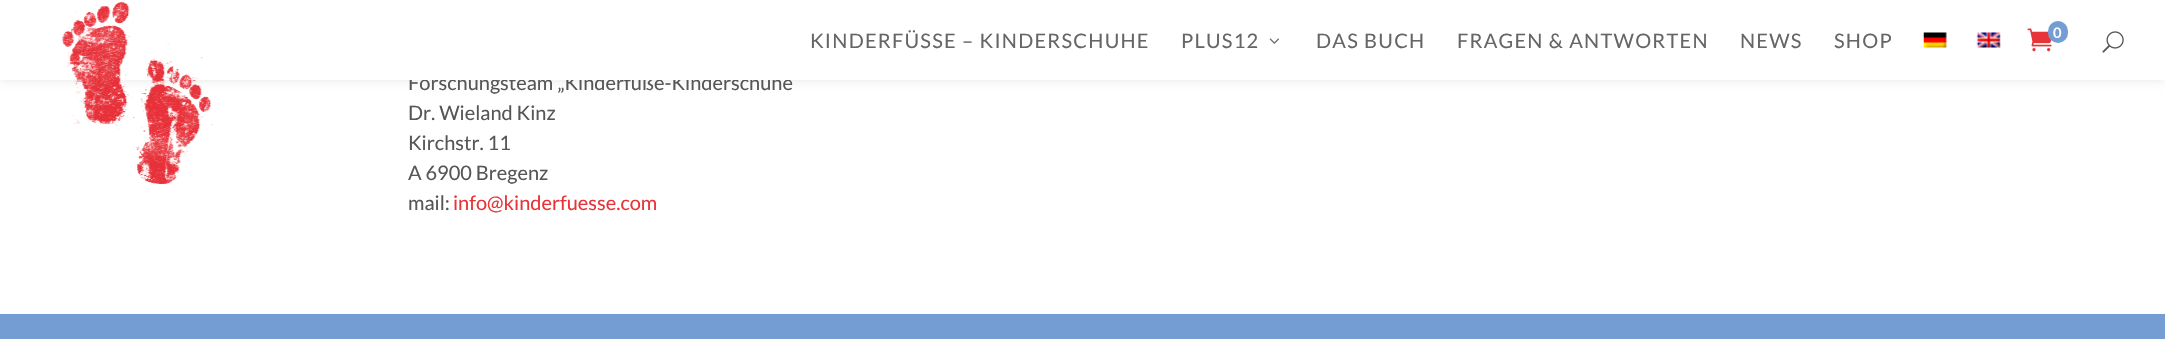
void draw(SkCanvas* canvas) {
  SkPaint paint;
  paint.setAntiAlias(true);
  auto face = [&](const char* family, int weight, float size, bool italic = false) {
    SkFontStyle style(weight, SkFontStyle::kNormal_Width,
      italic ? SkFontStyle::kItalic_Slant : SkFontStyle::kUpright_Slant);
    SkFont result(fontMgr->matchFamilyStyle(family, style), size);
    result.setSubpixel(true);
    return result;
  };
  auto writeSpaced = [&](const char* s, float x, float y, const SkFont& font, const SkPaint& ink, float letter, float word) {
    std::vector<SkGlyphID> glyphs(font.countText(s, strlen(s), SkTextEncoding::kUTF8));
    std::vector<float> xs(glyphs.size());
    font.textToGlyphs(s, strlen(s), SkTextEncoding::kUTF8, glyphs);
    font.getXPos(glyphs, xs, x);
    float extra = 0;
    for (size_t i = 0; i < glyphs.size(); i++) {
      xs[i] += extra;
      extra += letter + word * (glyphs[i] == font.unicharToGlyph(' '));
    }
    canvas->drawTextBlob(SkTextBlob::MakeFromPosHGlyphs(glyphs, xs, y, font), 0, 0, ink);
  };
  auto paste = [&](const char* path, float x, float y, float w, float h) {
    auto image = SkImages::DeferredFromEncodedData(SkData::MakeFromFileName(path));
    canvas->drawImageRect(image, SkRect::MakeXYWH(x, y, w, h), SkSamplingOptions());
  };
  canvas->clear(0xffffffff);
  paint.setColor(0x1a000000);
  paint.setMaskFilter(SkMaskFilter::MakeBlur(kNormal_SkBlurStyle, 4.5f));
  canvas->drawRect(SkRect::MakeXYWH(0, 0, 2165, 80), paint);
  paint.setMaskFilter(nullptr);
  paint.setColor(0xff749dd3);
  canvas->drawRect(SkRect::MakeXYWH(0, 314, 2165, 25), paint);
  auto f0 = face("Lato", 400, 20);
  paint.setColor(0xff565656);
  canvas->drawString("Forschungsteam „Kinderfüße-Kinderschuhe", 408, 90, f0, paint);
  paint.setColor(0xffffffff);
  canvas->drawRect(SkRect::MakeXYWH(0, 0, 2165, 80), paint);
  paste("img/6.png", 2102, 31, 22, 22);
  paste("img/5.png", 2027, 28, 25, 24);
  paint.setColor(0xff749dd3);
  canvas->drawRoundRect(SkRect::MakeXYWH(2048, 21, 20, 22), 10, 10, paint);
  auto f1 = face("Lato", 700, 14);
  paint.setColor(0xffffffff);
  canvas->drawString("0", 2053, 38, f1, paint);
  paste("img/4.png", 1976, 32, 25, 16);
  paste("img/3.png", 1923, 32, 24, 16);
  paint.setColor(0xff666666);
  {
    const struct { const char* s; float x, y; } items[] = {
      {"SHOP", 1834, 48},
      {"NEWS", 1740, 48},
      {"FRAGEN & ANTWORTEN", 1457, 48},
      {"DAS BUCH", 1316, 48},
    };
    for (auto [s, x, y] : items) {
      writeSpaced(s, x, y, f0, paint, 1.25f, 0);
    }
  }
  paste("img/2.png", 1269, 38, 10, 6);
  writeSpaced("PLUS12", 1181, 48, f0, paint, 1.25f, 0);
  writeSpaced("KINDERFÜSSE – KINDERSCHUHE", 810, 48, f0, paint, 1.25f, 0);
  paste("img/1.png", 62, 1, 151, 187);
  paint.setColor(0xff565656);
  {
    const struct { const char* s; float x, y; } items[] = {
      {"Dr. Wieland Kinz", 408, 120},
      {"Kirchstr. 11", 408, 150},
      {"A 6900 Bregenz", 408, 180},
      {"mail:", 408, 210},
    };
    for (auto [s, x, y] : items) {
      canvas->drawString(s, x, y, f0, paint);
    }
  }
  paint.setColor(0xffe73439);
  canvas->drawString("info@kinderfuesse.com", 453, 210, f0, paint);
}
